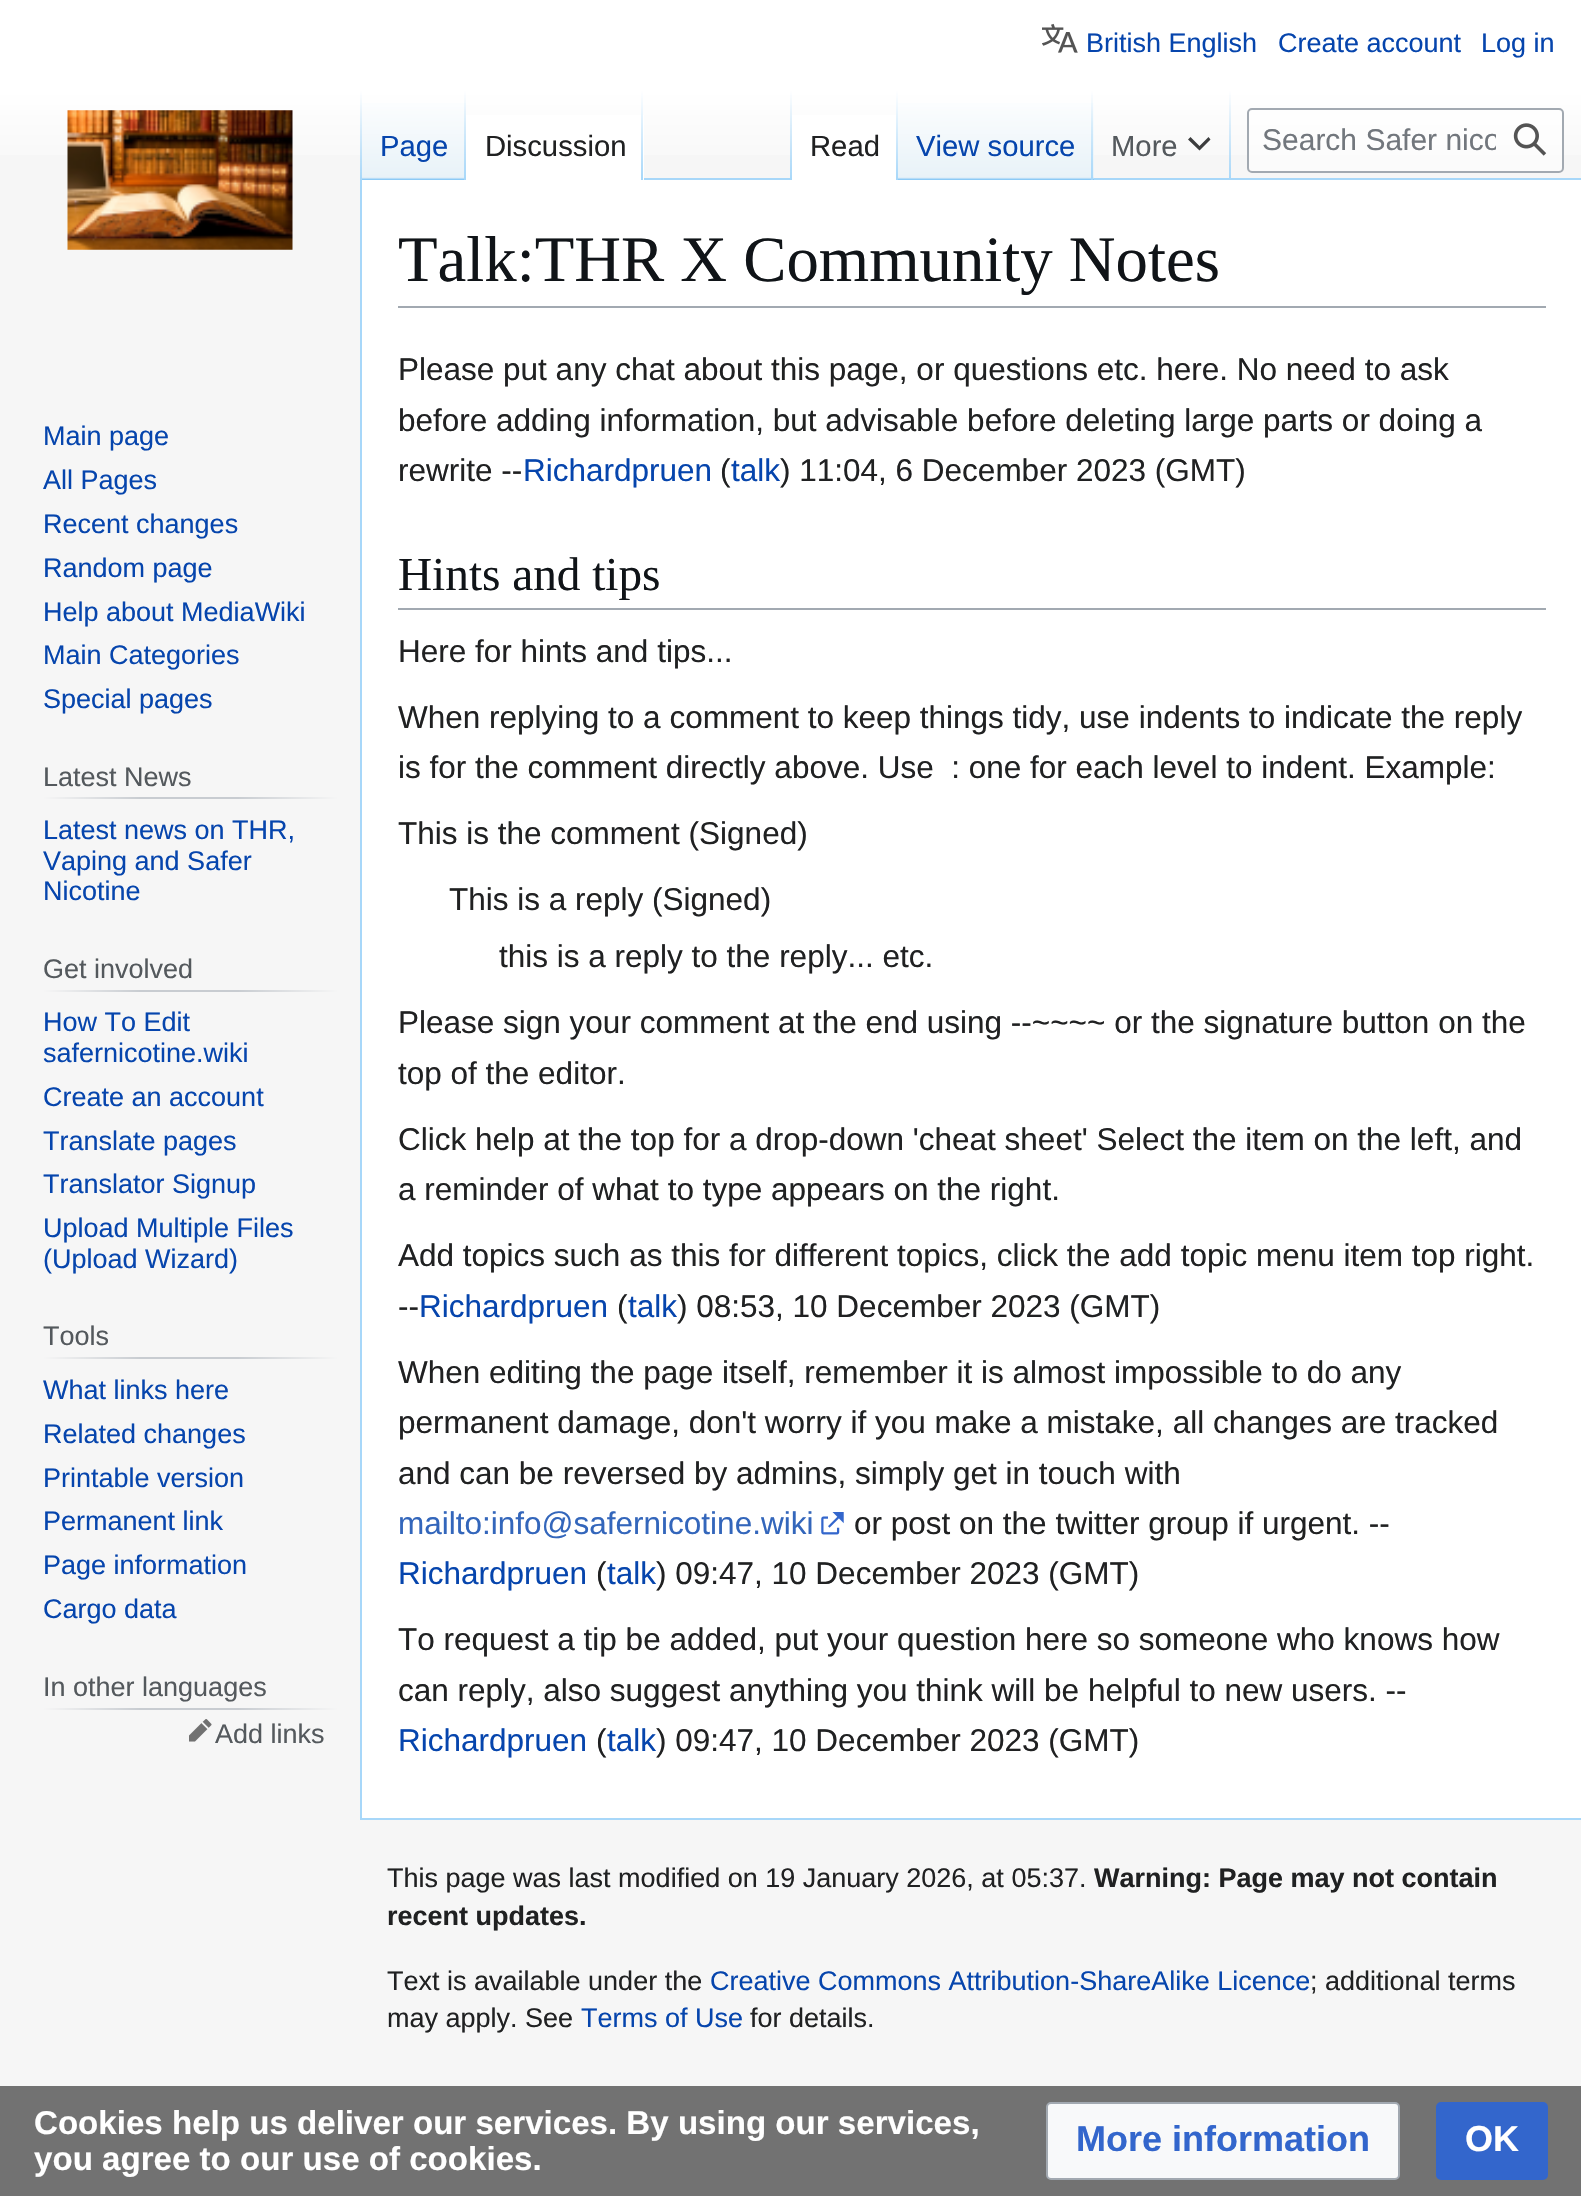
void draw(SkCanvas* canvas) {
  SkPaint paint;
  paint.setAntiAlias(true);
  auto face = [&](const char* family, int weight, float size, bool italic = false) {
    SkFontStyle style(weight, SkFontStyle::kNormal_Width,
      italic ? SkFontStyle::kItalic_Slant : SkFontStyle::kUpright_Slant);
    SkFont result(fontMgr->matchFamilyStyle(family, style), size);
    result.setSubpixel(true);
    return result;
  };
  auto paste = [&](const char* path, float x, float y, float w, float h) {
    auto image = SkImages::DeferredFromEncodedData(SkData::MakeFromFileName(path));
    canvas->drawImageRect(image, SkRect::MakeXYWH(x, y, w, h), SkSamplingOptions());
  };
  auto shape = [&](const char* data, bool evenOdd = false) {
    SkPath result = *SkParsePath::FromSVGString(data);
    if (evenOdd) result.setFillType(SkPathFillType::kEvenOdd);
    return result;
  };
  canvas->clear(0xfff6f6f6);
  {
    const SkColor colors[] = {0xffffffff, 0xfff6f6f6};
    const float stops[] = {0.5f, 1};
    const SkPoint ends[] = {{791, 0}, {791, 180}};
    paint.setShader(SkGradientShader::MakeLinear(ends, colors, stops, 2, SkTileMode::kClamp));
    paint.setAlpha(255);
  }
  canvas->drawRect(SkRect::MakeXYWH(0, 0, 1581, 155), paint);
  paste("img/1.png", 1042, 23, 36, 30);
  paint.setShader(nullptr);
  paint.setColor(0xffa7d7f9);
  canvas->drawRect(SkRect::MakeXYWH(360, 1818, 1221, 2), paint);
  canvas->drawRect(SkRect::MakeXYWH(360, 178, 2, 1642), paint);
  {
    const SkColor colors[] = {0x00a7d7f9, 0xffa7d7f9};
    const float stops[] = {0, 1};
    const SkPoint ends[] = {{361, 90}, {361, 180}};
    paint.setShader(SkGradientShader::MakeLinear(ends, colors, stops, 2, SkTileMode::kClamp));
    paint.setAlpha(255);
  }
  canvas->drawRect(SkRect::MakeXYWH(360, 90, 2, 90), paint);
  {
    const SkColor colors[] = {0xff77c1f6, 0xffe8f2f8, 0xffffffff};
    const float stops[] = {0, 0.03f, 1};
    const SkPoint ends[] = {{414, 180}, {414, 90}};
    paint.setShader(SkGradientShader::MakeLinear(ends, colors, stops, 3, SkTileMode::kClamp));
    paint.setAlpha(255);
  }
  canvas->drawRect(SkRect::MakeXYWH(362, 103, 104, 77), paint);
  {
    const SkColor colors[] = {0x00a7d7f9, 0xffa7d7f9};
    const float stops[] = {0, 1};
    const SkPoint ends[] = {{465, 90}, {465, 180}};
    paint.setShader(SkGradientShader::MakeLinear(ends, colors, stops, 2, SkTileMode::kClamp));
    paint.setAlpha(255);
  }
  canvas->drawRect(SkRect::MakeXYWH(464, 90, 2, 90), paint);
  paint.setShader(nullptr);
  paint.setColor(0xffffffff);
  canvas->drawRect(SkRect::MakeXYWH(466, 115, 178, 65), paint);
  {
    const SkColor colors[] = {0xffffffff, 0xffa7d7f9};
    const float stops[] = {0, 1};
    const SkPoint ends[] = {{642, 90}, {642, 180}};
    paint.setShader(SkGradientShader::MakeLinear(ends, colors, stops, 2, SkTileMode::kClamp));
    paint.setAlpha(255);
  }
  canvas->drawRect(SkRect::MakeXYWH(641, 90, 2, 90), paint);
  paint.setShader(nullptr);
  paint.setColor(0xffa7d7f9);
  canvas->drawRect(SkRect::MakeXYWH(644, 178, 937, 2), paint);
  {
    const SkColor colors[] = {0x00a7d7f9, 0xffa7d7f9};
    const float stops[] = {0, 1};
    const SkPoint ends[] = {{791, 90}, {791, 180}};
    paint.setShader(SkGradientShader::MakeLinear(ends, colors, stops, 2, SkTileMode::kClamp));
    paint.setAlpha(255);
  }
  canvas->drawRect(SkRect::MakeXYWH(790, 90, 2, 90), paint);
  paint.setShader(nullptr);
  paint.setColor(0xffffffff);
  canvas->drawRect(SkRect::MakeXYWH(792, 115, 104, 65), paint);
  {
    const SkColor colors[] = {0xffffffff, 0xffa7d7f9};
    const float stops[] = {0, 1};
    const SkPoint ends[] = {{897, 90}, {897, 180}};
    paint.setShader(SkGradientShader::MakeLinear(ends, colors, stops, 2, SkTileMode::kClamp));
    paint.setAlpha(255);
  }
  canvas->drawRect(SkRect::MakeXYWH(896, 90, 2, 90), paint);
  {
    const SkColor colors[] = {0xff77c1f6, 0xffe8f2f8, 0xffffffff};
    const float stops[] = {0, 0.03f, 1};
    const SkPoint ends[] = {{996, 180}, {996, 90}};
    paint.setShader(SkGradientShader::MakeLinear(ends, colors, stops, 3, SkTileMode::kClamp));
    paint.setAlpha(255);
  }
  canvas->drawRect(SkRect::MakeXYWH(898, 103, 196, 77), paint);
  {
    const SkColor colors[] = {0x00a7d7f9, 0xffa7d7f9};
    const float stops[] = {0, 1};
    const SkPoint ends[] = {{1092, 90}, {1092, 180}};
    paint.setShader(SkGradientShader::MakeLinear(ends, colors, stops, 2, SkTileMode::kClamp));
    paint.setAlpha(255);
  }
  canvas->drawRect(SkRect::MakeXYWH(1091, 90, 2, 90), paint);
  {
    const SkColor colors[] = {0x00a7d7f9, 0xffa7d7f9};
    const float stops[] = {0, 1};
    const SkPoint ends[] = {{1230, 90}, {1230, 180}};
    paint.setShader(SkGradientShader::MakeLinear(ends, colors, stops, 2, SkTileMode::kClamp));
    paint.setAlpha(255);
  }
  canvas->drawRect(SkRect::MakeXYWH(1229, 90, 2, 90), paint);
  paint.setShader(nullptr);
  paint.setColor(0xff3c3d3e);
  canvas->drawPath(shape("M1210.5 139.5L1208.5 137L1199.5 146L1190.5 137L1188 139.5L1199.5 150.5Z"), paint);
  paint.setColor(0x80ffffff);
  canvas->drawRoundRect(SkRect::MakeXYWH(1248, 109, 315, 63), 4, 4, paint);
  paint.setStroke(true);
  paint.setStrokeWidth(2);
  paint.setColor(0xffa2a9b1);
  canvas->drawRoundRect(SkRect::MakeXYWH(1248, 109, 315, 63), 4, 4, paint);
  paste("img/2.png", 1513, 123, 34, 33);
  paste("img/3.png", 67, 110, 226, 140);
  paint.setStroke(false);
  {
    const SkColor colors[] = {0xfff6f6f6, 0xffc8ccd1, 0xffc8ccd1, 0xfff6f6f6};
    const float stops[] = {0, 0.33f, 0.66f, 1};
    const SkPoint ends[] = {{43, 798}, {338, 798}};
    paint.setShader(SkGradientShader::MakeLinear(ends, colors, stops, 4, SkTileMode::kClamp));
    paint.setAlpha(255);
  }
  canvas->drawRect(SkRect::MakeXYWH(43, 797, 295, 2), paint);
  {
    const SkColor colors[] = {0xfff6f6f6, 0xffc8ccd1, 0xffc8ccd1, 0xfff6f6f6};
    const float stops[] = {0, 0.33f, 0.66f, 1};
    const SkPoint ends[] = {{43, 991}, {338, 991}};
    paint.setShader(SkGradientShader::MakeLinear(ends, colors, stops, 4, SkTileMode::kClamp));
    paint.setAlpha(255);
  }
  canvas->drawRect(SkRect::MakeXYWH(43, 990, 295, 2), paint);
  {
    const SkColor colors[] = {0xfff6f6f6, 0xffc8ccd1, 0xffc8ccd1, 0xfff6f6f6};
    const float stops[] = {0, 0.33f, 0.66f, 1};
    const SkPoint ends[] = {{43, 1358}, {338, 1358}};
    paint.setShader(SkGradientShader::MakeLinear(ends, colors, stops, 4, SkTileMode::kClamp));
    paint.setAlpha(255);
  }
  canvas->drawRect(SkRect::MakeXYWH(43, 1357, 295, 2), paint);
  {
    const SkColor colors[] = {0xfff6f6f6, 0xffc8ccd1, 0xffc8ccd1, 0xfff6f6f6};
    const float stops[] = {0, 0.33f, 0.66f, 1};
    const SkPoint ends[] = {{43, 1709}, {338, 1709}};
    paint.setShader(SkGradientShader::MakeLinear(ends, colors, stops, 4, SkTileMode::kClamp));
    paint.setAlpha(255);
  }
  canvas->drawRect(SkRect::MakeXYWH(43, 1708, 295, 2), paint);
  paste("img/4.png", 189, 1719, 23, 23);
  paint.setShader(nullptr);
  {
    const struct { float x, y, w, h; SkColor color; } items[] = {
      {362, 180, 1219, 1638, 0xffffffff},
      {398, 306, 1148, 2, 0xffa2a9b1},
      {398, 608, 1148, 2, 0xffa2a9b1},
    };
    for (auto [x, y, w, h, color] : items) {
      paint.setColor(color);
      canvas->drawRect(SkRect::MakeXYWH(x, y, w, h), paint);
    }
  }
  paste("img/5.png", 821, 1512, 23, 23);
  paint.setColor(0xd95a5a5a);
  canvas->drawRect(SkRect::MakeXYWH(0, 2086, 1581, 110), paint);
  paint.setColor(0xfff8f9fa);
  canvas->drawRoundRect(SkRect::MakeXYWH(1047, 2103, 352, 76), 4, 4, paint);
  paint.setStroke(true);
  paint.setColor(0xffa2a9b1);
  canvas->drawRoundRect(SkRect::MakeXYWH(1047, 2103, 352, 76), 4, 4, paint);
  paint.setStroke(false);
  paint.setColor(0xff3366cc);
  canvas->drawRoundRect(SkRect::MakeXYWH(1437, 2103, 110, 76), 4, 4, paint);
  paint.setStroke(true);
  canvas->drawRoundRect(SkRect::MakeXYWH(1437, 2103, 110, 76), 4, 4, paint);
  auto f0 = face("Liberation Sans", 400, 27);
  paint.setStroke(false);
  paint.setColor(0xff0645ad);
  {
    const struct { const char* s; float x, y; } items[] = {
      {"British English", 1086, 52},
      {"Create account", 1278, 52},
      {"Log in", 1481, 52},
    };
    for (auto [s, x, y] : items) {
      canvas->drawString(s, x, y, f0, paint);
    }
  }
  auto f1 = face("Liberation Sans", 400, 29.25f);
  canvas->drawString("Page", 380, 156, f1, paint);
  paint.setColor(0xff202122);
  canvas->drawString("Discussion", 485, 156, f1, paint);
  canvas->drawString("Read", 810, 156, f1, paint);
  paint.setColor(0xff0645ad);
  canvas->drawString("View source", 916, 156, f1, paint);
  paint.setColor(0xff54595d);
  canvas->drawString("More", 1111, 156, f1, paint);
  canvas->save();
  canvas->clipRect(SkRect::MakeXYWH(1262, 124, 234, 34));
  auto f2 = face("Liberation Sans", 400, 30);
  paint.setColor(0xff72777d);
  canvas->drawString("Search Safer nico", 1262, 150, f2, paint);
  canvas->restore();
  paint.setColor(0xff0645ad);
  {
    const struct { const char* s; float x, y; } items[] = {
      {"Main page", 43, 445},
      {"All Pages", 43, 489},
      {"Recent changes", 43, 533},
      {"Random page", 43, 577},
      {"Help about MediaWiki", 43, 621},
      {"Main Categories", 43, 664},
      {"Special pages", 43, 708},
    };
    for (auto [s, x, y] : items) {
      canvas->drawString(s, x, y, f0, paint);
    }
  }
  paint.setColor(0xff54595d);
  canvas->drawString("Latest News", 43, 786, f0, paint);
  paint.setColor(0xff0645ad);
  {
    const struct { const char* s; float x, y; } items[] = {
      {"Latest news on THR,", 43, 839},
      {"Vaping and Safer", 43, 870},
      {"Nicotine", 43, 900},
    };
    for (auto [s, x, y] : items) {
      canvas->drawString(s, x, y, f0, paint);
    }
  }
  paint.setColor(0xff54595d);
  canvas->drawString("Get involved", 43, 978, f0, paint);
  paint.setColor(0xff0645ad);
  {
    const struct { const char* s; float x, y; } items[] = {
      {"How To Edit", 43, 1031},
      {"safernicotine.wiki", 43, 1062},
      {"Create an account", 43, 1106},
      {"Translate pages", 43, 1150},
      {"Translator Signup", 43, 1193},
      {"Upload Multiple Files", 43, 1237},
      {"(Upload Wizard)", 43, 1268},
    };
    for (auto [s, x, y] : items) {
      canvas->drawString(s, x, y, f0, paint);
    }
  }
  paint.setColor(0xff54595d);
  canvas->drawString("Tools", 43, 1345, f0, paint);
  paint.setColor(0xff0645ad);
  {
    const struct { const char* s; float x, y; } items[] = {
      {"What links here", 43, 1399},
      {"Related changes", 43, 1443},
      {"Printable version", 43, 1487},
      {"Permanent link", 43, 1530},
      {"Page information", 43, 1574},
      {"Cargo data", 43, 1618},
    };
    for (auto [s, x, y] : items) {
      canvas->drawString(s, x, y, f0, paint);
    }
  }
  paint.setColor(0xff54595d);
  canvas->drawString("In other languages", 43, 1696, f0, paint);
  canvas->drawString("Add links", 215, 1743, f0, paint);
  auto f3 = face("Liberation Serif", 400, 64.75f);
  paint.setColor(0xff101418);
  canvas->drawString("Talk:THR X Community Notes", 398, 281, f3, paint);
  auto f4 = face("Liberation Sans", 400, 31.5f);
  paint.setColor(0xff202122);
  {
    const struct { const char* s; float x, y; } items[] = {
      {"Please put any chat about this page, or questions etc. here. No need to ask", 398, 380},
      {"before adding information, but advisable before deleting large parts or doing a", 398, 431},
      {"rewrite --", 398, 481},
    };
    for (auto [s, x, y] : items) {
      canvas->drawString(s, x, y, f4, paint);
    }
  }
  paint.setColor(0xff0645ad);
  canvas->drawString("Richardpruen", 523, 481, f4, paint);
  paint.setColor(0xff202122);
  canvas->drawString("(", 720, 481, f4, paint);
  paint.setColor(0xff0645ad);
  canvas->drawString("talk", 731, 481, f4, paint);
  paint.setColor(0xff202122);
  canvas->drawString(") 11:04, 6 December 2023 (GMT)", 780, 481, f4, paint);
  auto f5 = face("Liberation Serif", 400, 47.25f);
  paint.setColor(0xff101418);
  canvas->drawString("Hints and tips", 398, 590, f5, paint);
  paint.setColor(0xff202122);
  {
    const struct { const char* s; float x, y; } items[] = {
      {"Here for hints and tips...", 398, 662},
      {"When replying to a comment to keep things tidy, use indents to indicate the reply", 398, 728},
      {"is for the comment directly above. Use  : one for each level to indent. Example:", 398, 778},
      {"This is the comment (Signed)", 398, 844},
      {"This is a reply (Signed)", 449, 910},
      {"this is a reply to the reply... etc.", 499, 967},
      {"Please sign your comment at the end using --~~~~ or the signature button on the", 398, 1033},
      {"top of the editor.", 398, 1084},
      {"Click help at the top for a drop-down 'cheat sheet' Select the item on the left, and", 398, 1150},
      {"a reminder of what to type appears on the right.", 398, 1200},
      {"Add topics such as this for different topics, click the add topic menu item top right.", 398, 1266},
      {"--", 398, 1317},
    };
    for (auto [s, x, y] : items) {
      canvas->drawString(s, x, y, f4, paint);
    }
  }
  paint.setColor(0xff0645ad);
  canvas->drawString("Richardpruen", 419, 1317, f4, paint);
  paint.setColor(0xff202122);
  canvas->drawString("(", 617, 1317, f4, paint);
  paint.setColor(0xff0645ad);
  canvas->drawString("talk", 628, 1317, f4, paint);
  paint.setColor(0xff202122);
  {
    const struct { const char* s; float x, y; } items[] = {
      {") 08:53, 10 December 2023 (GMT)", 677, 1317},
      {"When editing the page itself, remember it is almost impossible to do any", 398, 1383},
      {"permanent damage, don't worry if you make a mistake, all changes are tracked", 398, 1433},
      {"and can be reversed by admins, simply get in touch with", 398, 1484},
    };
    for (auto [s, x, y] : items) {
      canvas->drawString(s, x, y, f4, paint);
    }
  }
  paint.setColor(0xff3366bb);
  canvas->drawString("mailto:info@safernicotine.wiki", 398, 1534, f4, paint);
  paint.setColor(0xff202122);
  canvas->drawString("or post on the twitter group if urgent. --", 854, 1534, f4, paint);
  paint.setColor(0xff0645ad);
  canvas->drawString("Richardpruen", 398, 1584, f4, paint);
  paint.setColor(0xff202122);
  canvas->drawString("(", 596, 1584, f4, paint);
  paint.setColor(0xff0645ad);
  canvas->drawString("talk", 607, 1584, f4, paint);
  paint.setColor(0xff202122);
  {
    const struct { const char* s; float x, y; } items[] = {
      {") 09:47, 10 December 2023 (GMT)", 656, 1584},
      {"To request a tip be added, put your question here so someone who knows how", 398, 1650},
      {"can reply, also suggest anything you think will be helpful to new users. --", 398, 1701},
    };
    for (auto [s, x, y] : items) {
      canvas->drawString(s, x, y, f4, paint);
    }
  }
  paint.setColor(0xff0645ad);
  canvas->drawString("Richardpruen", 398, 1751, f4, paint);
  paint.setColor(0xff202122);
  canvas->drawString("(", 596, 1751, f4, paint);
  paint.setColor(0xff0645ad);
  canvas->drawString("talk", 607, 1751, f4, paint);
  paint.setColor(0xff202122);
  canvas->drawString(") 09:47, 10 December 2023 (GMT)", 656, 1751, f4, paint);
  canvas->drawString("This page was last modified on 19 January 2026, at 05:37.", 387, 1887, f0, paint);
  auto f6 = face("Liberation Sans", 700, 27);
  canvas->drawString("Warning: Page may not contain", 1094, 1887, f6, paint);
  canvas->drawString("recent updates.", 387, 1925, f6, paint);
  canvas->drawString("Text is available under the", 387, 1990, f0, paint);
  paint.setColor(0xff0645ad);
  canvas->drawString("Creative Commons Attribution-ShareAlike Licence", 710, 1990, f0, paint);
  paint.setColor(0xff202122);
  canvas->drawString("; additional terms", 1310, 1990, f0, paint);
  canvas->drawString("may apply. See", 387, 2027, f0, paint);
  paint.setColor(0xff0645ad);
  canvas->drawString("Terms of Use", 581, 2027, f0, paint);
  paint.setColor(0xff202122);
  canvas->drawString("for details.", 750, 2027, f0, paint);
  auto f7 = face("Liberation Sans", 700, 33.1f);
  paint.setColor(0xffffffff);
  canvas->drawString("Cookies help us deliver our services. By using our services,", 34, 2134, f7, paint);
  canvas->drawString("you agree to our use of cookies.", 34, 2170, f7, paint);
  auto f8 = face("Liberation Sans", 700, 36);
  paint.setColor(0xff3366cc);
  canvas->drawString("More information", 1076, 2151, f8, paint);
  paint.setColor(0xffffffff);
  canvas->drawString("OK", 1465, 2151, f8, paint);
}
